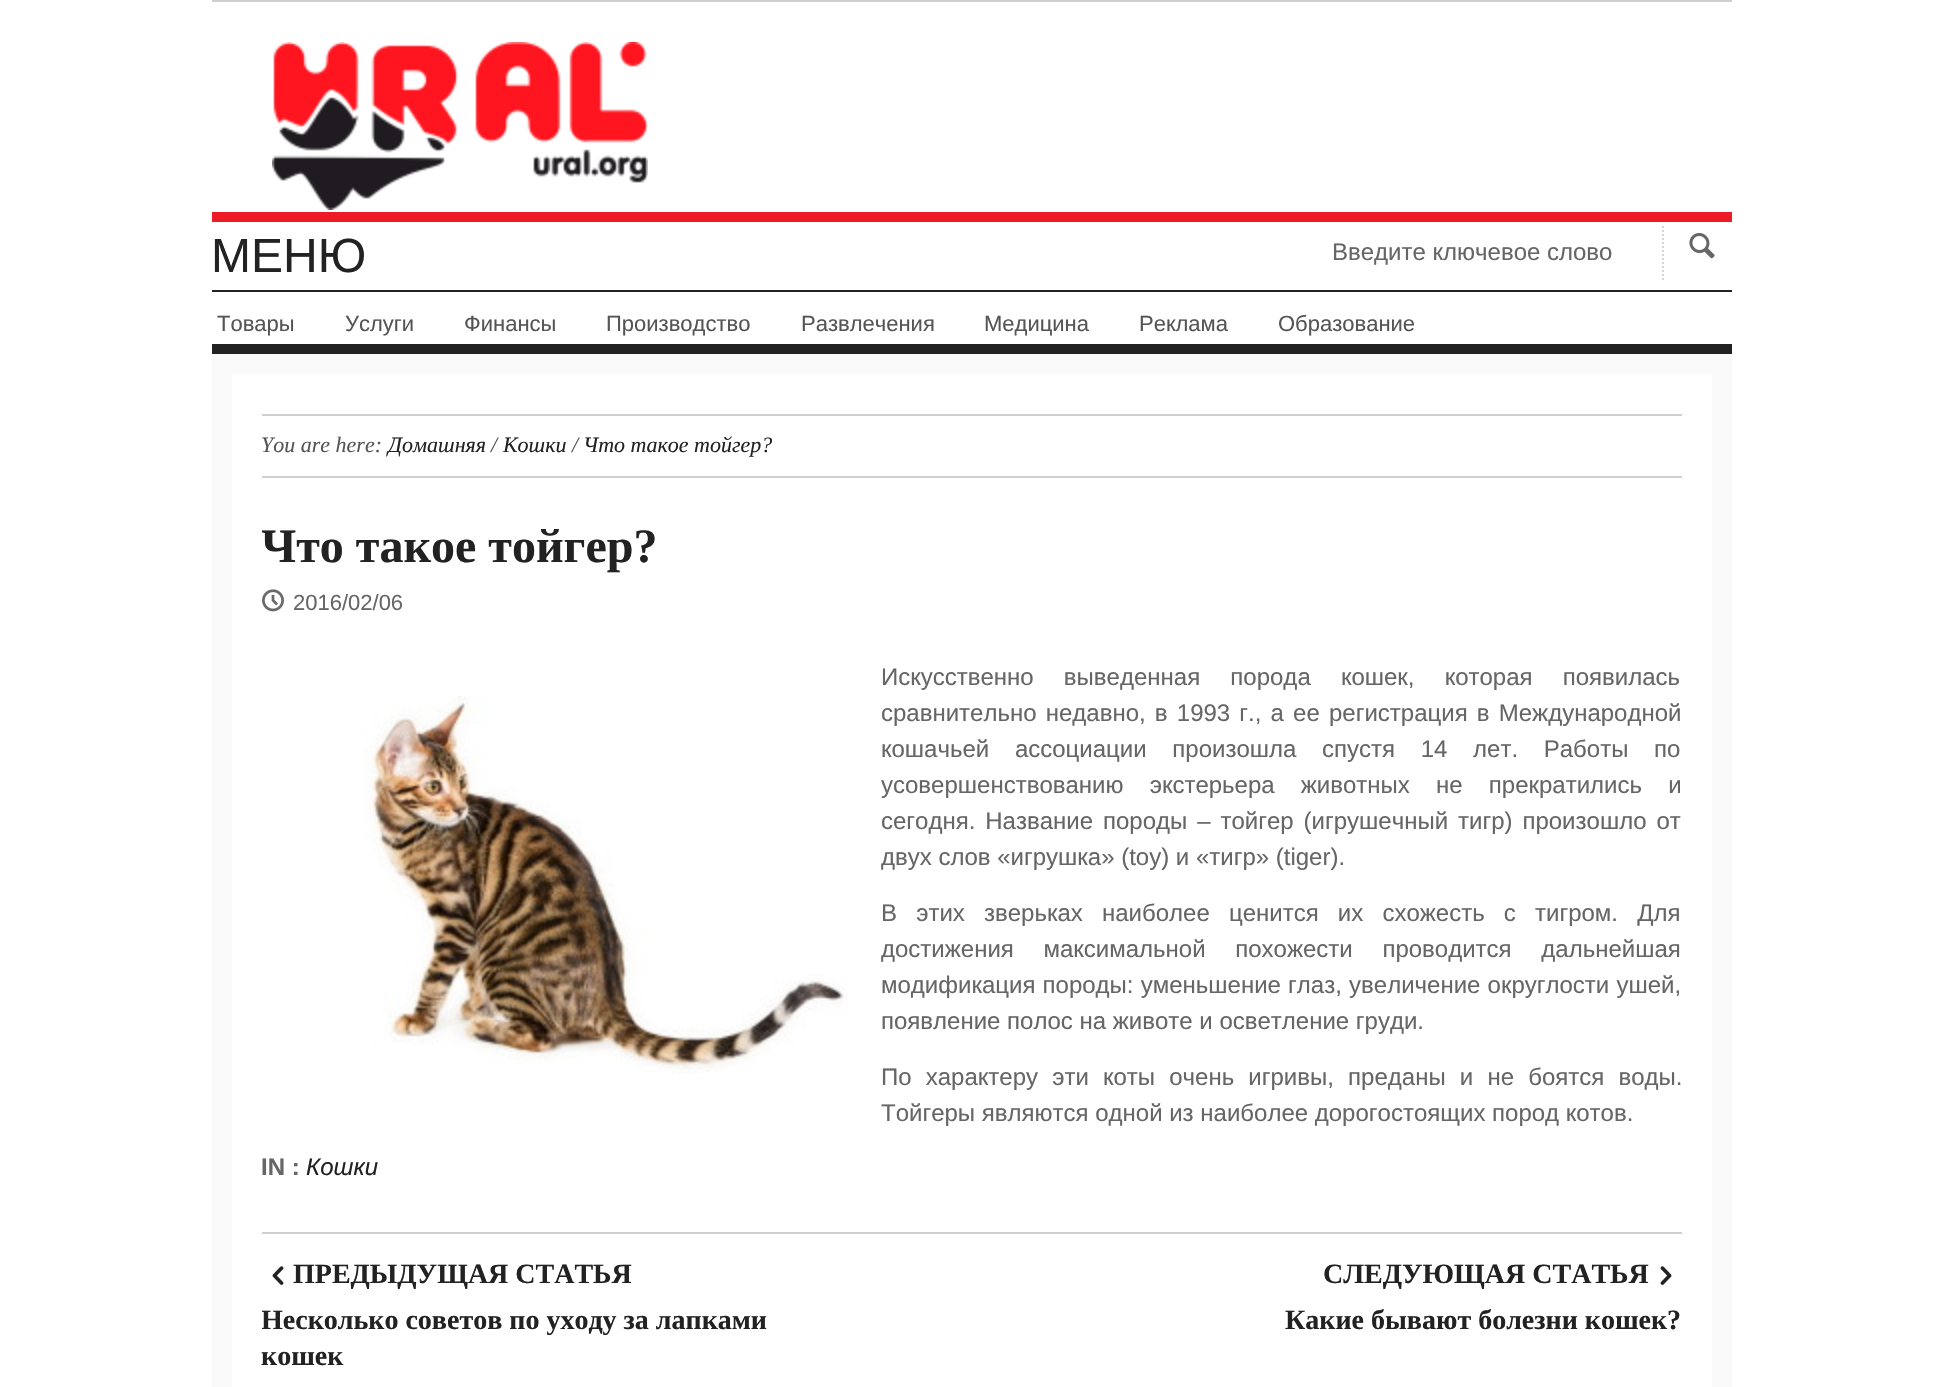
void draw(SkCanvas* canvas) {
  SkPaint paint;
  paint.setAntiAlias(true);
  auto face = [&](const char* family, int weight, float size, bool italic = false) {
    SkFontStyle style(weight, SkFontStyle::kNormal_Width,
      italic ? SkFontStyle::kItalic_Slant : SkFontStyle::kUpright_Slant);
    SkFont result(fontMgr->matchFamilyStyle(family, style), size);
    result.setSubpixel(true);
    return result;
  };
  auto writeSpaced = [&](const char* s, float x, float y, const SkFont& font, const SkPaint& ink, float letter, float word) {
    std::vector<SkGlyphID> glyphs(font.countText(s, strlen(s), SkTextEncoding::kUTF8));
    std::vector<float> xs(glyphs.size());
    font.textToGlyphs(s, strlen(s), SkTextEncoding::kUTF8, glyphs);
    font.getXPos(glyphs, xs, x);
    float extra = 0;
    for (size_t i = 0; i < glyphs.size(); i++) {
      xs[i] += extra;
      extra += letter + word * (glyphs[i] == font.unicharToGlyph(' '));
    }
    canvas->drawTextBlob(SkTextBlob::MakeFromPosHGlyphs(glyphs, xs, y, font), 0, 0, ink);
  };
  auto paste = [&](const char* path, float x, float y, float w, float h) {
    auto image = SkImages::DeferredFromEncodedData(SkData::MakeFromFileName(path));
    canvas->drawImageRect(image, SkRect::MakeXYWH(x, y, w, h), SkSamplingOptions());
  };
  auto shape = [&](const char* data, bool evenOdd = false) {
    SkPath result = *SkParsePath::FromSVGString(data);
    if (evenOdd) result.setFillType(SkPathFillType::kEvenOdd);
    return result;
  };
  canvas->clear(0xffffffff);
  paint.setColor(0xffd0d0d0);
  canvas->drawRect(SkRect::MakeXYWH(212, 0, 1520, 2), paint);
  paste("img/1.png", 272, 42, 376, 168);
  paint.setColor(0xffed1c24);
  canvas->drawRect(SkRect::MakeXYWH(212, 212, 1520, 10), paint);
  paint.setColor(0xff222222);
  canvas->drawRect(SkRect::MakeXYWH(212, 344, 1520, 10), paint);
  paint.setStroke(true);
  paint.setStrokeWidth(2);
  paint.setColor(0xffd7d7d7);
  paint.setPathEffect(SkDashPathEffect::Make({{2, 2}}, 0));
  canvas->drawPath(shape("M1663 226V280"), paint);
  paint.setPathEffect(nullptr);
  paste("img/2.png", 1689, 232, 26, 27);
  paint.setStroke(false);
  paint.setColor(0xff222222);
  canvas->drawRect(SkRect::MakeXYWH(212, 290, 1520, 2), paint);
  paint.setStroke(true);
  paint.setStrokeWidth(20);
  paint.setColor(0xfff9f9f9);
  canvas->drawRect(SkRect::MakeXYWH(222, 364, 1500, 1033), paint);
  paint.setStroke(false);
  paint.setColor(0xffd0d0d0);
  canvas->drawRect(SkRect::MakeXYWH(262, 414, 1420, 2), paint);
  canvas->drawRect(SkRect::MakeXYWH(262, 476, 1420, 2), paint);
  paste("img/3.png", 262, 589, 22, 23);
  paste("img/4.png", 363, 696, 485, 378);
  canvas->drawRect(SkRect::MakeXYWH(262, 1232, 1420, 2), paint);
  paste("img/5.png", 272, 1266, 12, 19);
  paste("img/6.png", 1660, 1266, 12, 19);
  auto f0 = face("Liberation Sans", 400, 48);
  paint.setColor(0xff222222);
  canvas->drawString("МЕНЮ", 211, 272, f0, paint);
  auto f1 = face("Liberation Sans", 400, 24);
  paint.setColor(0xff666666);
  canvas->drawString("Введите ключевое слово", 1332, 260, f1, paint);
  auto f2 = face("Liberation Sans", 400, 22);
  paint.setColor(0xff555555);
  {
    const struct { const char* s; float x, y; } items[] = {
      {"Товары", 217, 331},
      {"Услуги", 345, 331},
      {"Финансы", 464, 331},
      {"Производство", 606, 331},
      {"Развлечения", 801, 331},
      {"Медицина", 984, 331},
      {"Реклама", 1139, 331},
      {"Образование", 1278, 331},
    };
    for (auto [s, x, y] : items) {
      canvas->drawString(s, x, y, f2, paint);
    }
  }
  auto f3 = face("Liberation Serif", 400, 22, true);
  canvas->drawString("You are here:", 261, 452, f3, paint);
  paint.setColor(0xff222222);
  canvas->drawString("Домашняя", 388, 452, f3, paint);
  paint.setColor(0xff555555);
  canvas->drawString("/", 491, 452, f3, paint);
  paint.setColor(0xff222222);
  canvas->drawString("Кошки", 503, 452, f3, paint);
  paint.setColor(0xff555555);
  canvas->drawString("/", 572, 452, f3, paint);
  paint.setColor(0xff222222);
  canvas->drawString("Что такое тойгер?", 583, 452, f3, paint);
  canvas->save();
  canvas->clipRect(SkRect::MakeXYWH(262, 518, 1420, 868));
  auto f4 = face("Liberation Serif", 700, 48);
  canvas->drawString("Что такое тойгер?", 261, 562, f4, paint);
  canvas->restore();
  paint.setColor(0xff666666);
  canvas->drawString("2016/02/06", 293, 610, f2, paint);
  writeSpaced("Искусственно выведенная порода кошек, которая появилась", 881, 685, f1, paint, 0, 23.5f);
  writeSpaced("сравнительно недавно, в 1993 г., а ее регистрация в Международной", 881, 721, f1, paint, 0, 2.5f);
  writeSpaced("кошачьей ассоциации произошла спустя 14 лет. Работы по", 881, 757, f1, paint, 0, 19);
  writeSpaced("усовершенствованию экстерьера животных не прекратились и", 881, 793, f1, paint, 0, 19.5f);
  writeSpaced("сегодня. Название породы – тойгер (игрушечный тигр) произошло от", 881, 829, f1, paint, 0, 3.25f);
  canvas->drawString("двух слов «игрушка» (toy) и «тигр» (tiger).", 881, 865, f1, paint);
  writeSpaced("В этих зверьках наиболее ценится их схожесть с тигром. Для", 881, 921, f1, paint, 0, 12.5f);
  writeSpaced("достижения максимальной похожести проводится дальнейшая", 881, 957, f1, paint, 0, 23);
  writeSpaced("модификация породы: уменьшение глаз, увеличение округлости ушей,", 881, 993, f1, paint, 0, 0.5f);
  canvas->drawString("появление полос на животе и осветление груди.", 881, 1029, f1, paint);
  writeSpaced("По характеру эти коты очень игривы, преданы и не боятся воды.", 881, 1085, f1, paint, 0, 7.5f);
  canvas->drawString("Тойгеры являются одной из наиболее дорогостоящих пород котов.", 881, 1121, f1, paint);
  auto f5 = face("Liberation Sans", 700, 24);
  canvas->drawString("IN :", 261, 1175, f5, paint);
  auto f6 = face("Liberation Sans", 400, 24, true);
  paint.setColor(0xff222222);
  canvas->drawString("Кошки", 306, 1175, f6, paint);
  auto f7 = face("Liberation Serif", 700, 28);
  canvas->drawString("ПРЕДЫДУЩАЯ СТАТЬЯ", 293, 1283, f7, paint);
  canvas->save();
  canvas->clipRect(SkRect::MakeXYWH(262, 518, 1420, 868));
  canvas->drawString("Несколько советов по уходу за лапками", 261, 1329, f7, paint);
  canvas->restore();
  {
    const struct { const char* s; float x, y; } items[] = {
      {"кошек", 261, 1365},
      {"СЛЕДУЮЩАЯ СТАТЬЯ", 1323, 1283},
      {"Какие бывают болезни кошек?", 1285, 1329},
    };
    for (auto [s, x, y] : items) {
      canvas->drawString(s, x, y, f7, paint);
    }
  }
}
